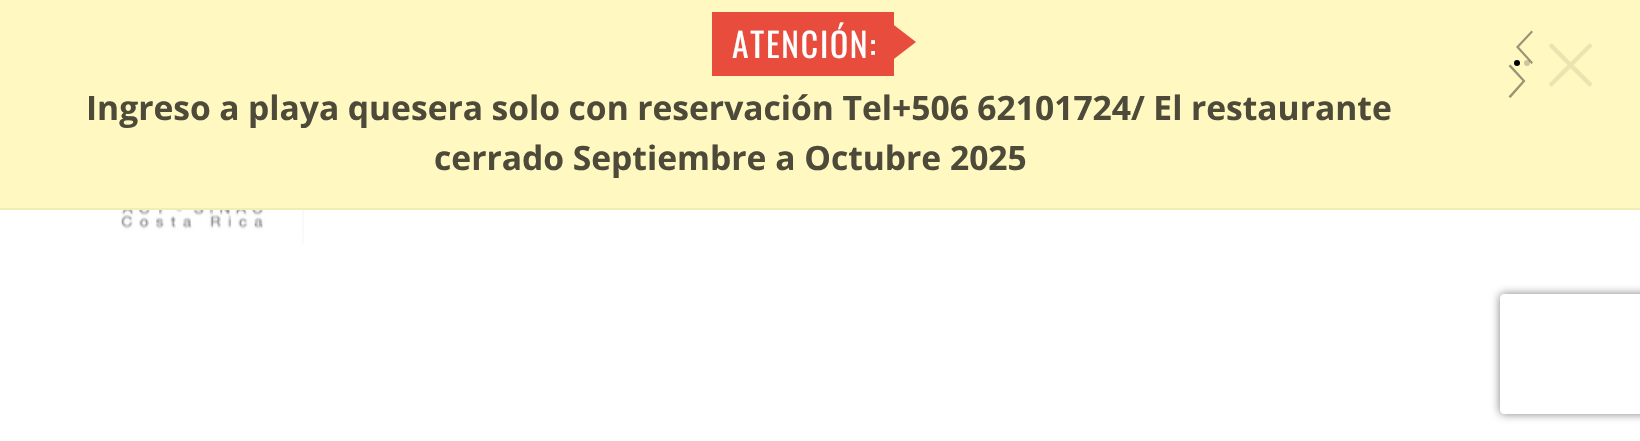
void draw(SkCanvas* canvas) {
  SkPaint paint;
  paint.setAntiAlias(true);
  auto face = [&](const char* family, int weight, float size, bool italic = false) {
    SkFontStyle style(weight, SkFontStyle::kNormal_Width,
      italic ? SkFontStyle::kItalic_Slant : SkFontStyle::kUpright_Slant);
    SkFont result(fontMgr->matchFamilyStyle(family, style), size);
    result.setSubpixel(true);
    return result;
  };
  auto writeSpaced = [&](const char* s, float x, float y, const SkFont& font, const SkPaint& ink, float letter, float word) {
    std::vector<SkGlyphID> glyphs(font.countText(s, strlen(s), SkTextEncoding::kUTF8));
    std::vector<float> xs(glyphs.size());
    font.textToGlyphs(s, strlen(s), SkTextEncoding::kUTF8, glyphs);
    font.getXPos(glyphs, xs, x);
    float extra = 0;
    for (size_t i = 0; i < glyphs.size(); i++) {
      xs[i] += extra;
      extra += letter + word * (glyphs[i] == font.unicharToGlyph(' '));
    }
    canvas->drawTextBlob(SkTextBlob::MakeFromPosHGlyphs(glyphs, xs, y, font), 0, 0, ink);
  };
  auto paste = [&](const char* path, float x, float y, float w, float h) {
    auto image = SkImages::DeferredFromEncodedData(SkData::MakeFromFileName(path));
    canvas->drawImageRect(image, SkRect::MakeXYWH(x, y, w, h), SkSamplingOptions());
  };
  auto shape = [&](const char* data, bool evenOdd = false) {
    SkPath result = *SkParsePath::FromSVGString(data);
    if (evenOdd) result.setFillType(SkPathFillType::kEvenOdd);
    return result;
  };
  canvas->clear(0xffffffff);
  {
    const struct { float x, y, w, h; SkColor color; } items[] = {
      {0, 0, 1640, 208, 0xfffff8c1},
      {0, 208, 1640, 2, 0xfff2ecb7},
      {712, 12, 182, 64, 0xffe74c3c},
    };
    for (auto [x, y, w, h, color] : items) {
      paint.setColor(color);
      canvas->drawRect(SkRect::MakeXYWH(x, y, w, h), paint);
    }
  }
  canvas->drawPath(shape("M890 62V22L916 42Z"), paint);
  paint.setColor(0xff999574);
  canvas->drawPath(shape("M1531.5 64L1533 62.5L1519 47L1533 32L1531.5 30.5L1516 47Z"), paint);
  paint.setColor(0xff000000);
  canvas->drawCircle(1517, 63, 3, paint);
  paint.setColor(0x33000000);
  canvas->drawCircle(1527, 63, 3, paint);
  paint.setColor(0xff999574);
  canvas->drawPath(shape("M1510.5 98L1525.5 81L1510.5 64.5L1508.5 66L1522.5 81L1508.5 96.5Z"), paint);
  paste("img/1.png", 120, 210, 184, 34);
  canvas->save();
  canvas->clipPath(shape("M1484 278H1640V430H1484ZM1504 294H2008C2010 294 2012 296 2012 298V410C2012 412 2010 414 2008 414H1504C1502 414 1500 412 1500 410V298C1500 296 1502 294 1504 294Z", true), true);
  paint.setColor(0xff808080);
  paint.setMaskFilter(SkMaskFilter::MakeBlur(kNormal_SkBlurStyle, 5));
  canvas->drawRoundRect(SkRect::MakeXYWH(1500, 294, 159, 120), 4, 4, paint);
  paint.setMaskFilter(nullptr);
  canvas->restore();
  auto f0 = face("Oswald", 400, 33.6f);
  paint.setColor(0xffffffff);
  writeSpaced("ATENCIÓN:", 732, 58, f0, paint, 1.75f, 0);
  auto f1 = face("Open Sans", 700, 33.6f);
  paint.setColor(0xff4d4a3a);
  writeSpaced("Ingreso a playa quesera solo con reservación Tel+506 62101724/ El restaurante", 86, 120, f1, paint, 0, -0.25f);
  canvas->drawString("cerrado Septiembre a Octubre 2025", 434, 170, f1, paint);
  auto f2 = face("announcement", 700, 42);
  paint.setColor(0xffebe4b1);
  canvas->drawString("c", 1549, 84, f2, paint);
}
